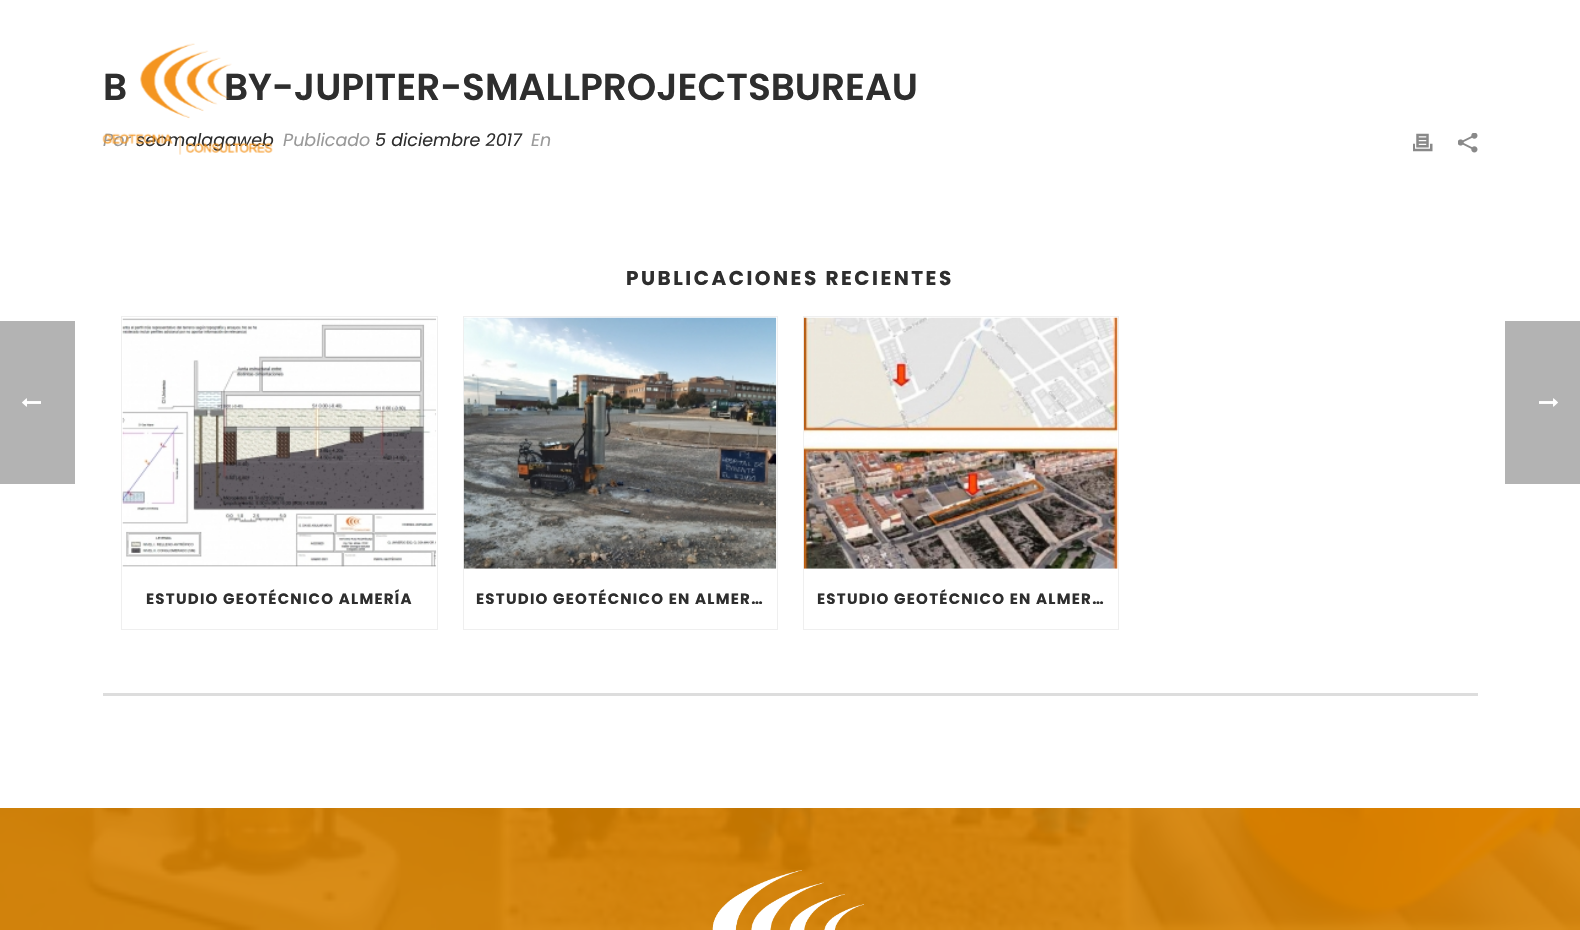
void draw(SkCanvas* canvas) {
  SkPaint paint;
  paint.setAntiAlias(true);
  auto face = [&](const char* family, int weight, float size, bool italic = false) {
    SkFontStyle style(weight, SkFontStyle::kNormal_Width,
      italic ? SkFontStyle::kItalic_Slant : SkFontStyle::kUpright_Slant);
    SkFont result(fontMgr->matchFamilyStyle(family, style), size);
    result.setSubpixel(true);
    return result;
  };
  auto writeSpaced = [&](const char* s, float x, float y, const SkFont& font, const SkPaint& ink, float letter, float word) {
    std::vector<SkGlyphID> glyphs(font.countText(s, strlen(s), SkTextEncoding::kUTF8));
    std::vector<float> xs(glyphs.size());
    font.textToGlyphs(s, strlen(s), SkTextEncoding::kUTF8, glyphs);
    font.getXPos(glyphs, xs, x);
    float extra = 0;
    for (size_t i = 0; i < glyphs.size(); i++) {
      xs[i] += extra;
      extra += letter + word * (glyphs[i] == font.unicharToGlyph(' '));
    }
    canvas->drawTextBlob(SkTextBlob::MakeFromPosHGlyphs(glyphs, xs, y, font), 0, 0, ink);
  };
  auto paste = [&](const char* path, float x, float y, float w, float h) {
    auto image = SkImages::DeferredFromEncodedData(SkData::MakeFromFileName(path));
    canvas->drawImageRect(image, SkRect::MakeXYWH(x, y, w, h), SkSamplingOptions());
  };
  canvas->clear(0xffffffff);
  paint.setColor(0xffb3b3b3);
  canvas->drawRect(SkRect::MakeXYWH(0, 321, 75, 163), paint);
  paste("img/1.png", 22, 398, 19, 9);
  paste("img/3.png", 1413, 133, 20, 19);
  paste("img/4.png", 1458, 133, 20, 20);
  paint.setColor(0xffdddddd);
  canvas->drawRect(SkRect::MakeXYWH(103, 693, 1375, 3), paint);
  paint.setStroke(true);
  paint.setStrokeWidth(1);
  paint.setColor(0xffefefef);
  canvas->drawRect(SkRect::MakeXYWH(121.5f, 316.5f, 316, 313), paint);
  paste("img/5.png", 122, 318, 315, 249);
  canvas->drawRect(SkRect::MakeXYWH(463.5f, 316.5f, 314, 313), paint);
  paste("img/6.png", 463, 317, 314, 252);
  canvas->drawRect(SkRect::MakeXYWH(803.5f, 316.5f, 315, 313), paint);
  paste("img/7.png", 803, 317, 315, 252);
  paste("img/8.png", 0, 808, 1580, 122);
  paste("img/9.png", 712, 870, 152, 60);
  paint.setStroke(false);
  paint.setColor(0xffb3b3b3);
  canvas->drawRect(SkRect::MakeXYWH(1505, 321, 75, 163), paint);
  paste("img/10.png", 1539, 398, 19, 9);
  auto f0 = face("Poppins", 600, 37.5f);
  paint.setColor(0xff2e2e2e);
  canvas->drawString("B", 103, 100, f0, paint);
  canvas->drawString("BY-JUPITER-SMALLPROJECTSBUREAU", 224, 100, f0, paint);
  auto f1 = face("Poppins", 400, 17.5f, true);
  paint.setColor(0xff999999);
  canvas->drawString("Por", 103, 146, f1, paint);
  paint.setColor(0xff2e2e2e);
  canvas->drawString("seomalagaweb", 136, 146, f1, paint);
  paste("img/2.png", 102, 43, 171, 112);
  paint.setColor(0xff999999);
  canvas->drawString("Publicado", 283, 146, f1, paint);
  paint.setColor(0xff2e2e2e);
  canvas->drawString("5 diciembre 2017", 375, 146, f1, paint);
  paint.setColor(0xff999999);
  canvas->drawString("En", 531, 146, f1, paint);
  auto f2 = face("Poppins", 700, 20);
  paint.setColor(0xff2e2e2e);
  writeSpaced("PUBLICACIONES RECIENTES", 626, 285, f2, paint, 2.5f, 0);
  auto f3 = face("Poppins", 700, 15);
  {
    const struct { const char* s; float x, y; } items[] = {
      {"ESTUDIO GEOTÉCNICO ALMERÍA", 146, 604},
      {"ESTUDIO GEOTÉCNICO EN ALMER…", 476, 604},
      {"ESTUDIO GEOTÉCNICO EN ALMER…", 817, 604},
    };
    for (auto [s, x, y] : items) {
      writeSpaced(s, x, y, f3, paint, 1.25f, 0);
    }
  }
}
